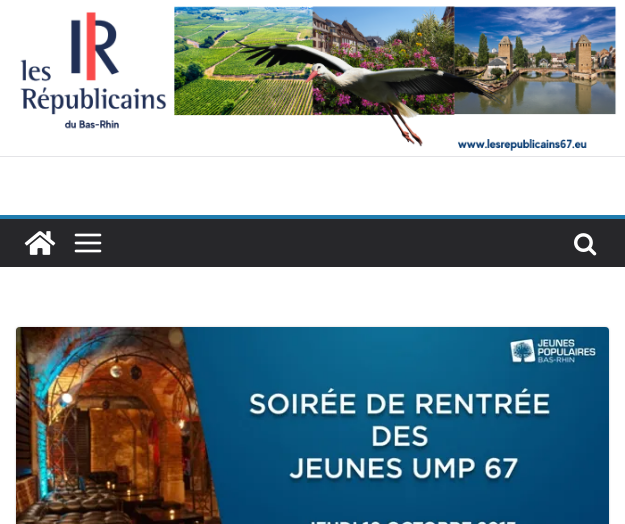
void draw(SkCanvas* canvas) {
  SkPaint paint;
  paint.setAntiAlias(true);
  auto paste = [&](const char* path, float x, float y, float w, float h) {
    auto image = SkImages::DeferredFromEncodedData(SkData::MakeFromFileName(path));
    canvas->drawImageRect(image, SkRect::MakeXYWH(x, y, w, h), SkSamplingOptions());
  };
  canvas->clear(0xffffffff);
  paste("img/1.png", 20, 6, 597, 145);
  {
    const struct { float x, y, w, h; SkColor color; } items[] = {
      {0, 156, 625, 1, 0xffe4e4e7},
      {0, 219, 625, 48, 0xff27272a},
      {0, 215, 625, 4, 0xff207daf},
    };
    for (auto [x, y, w, h, color] : items) {
      paint.setColor(color);
      canvas->drawRect(SkRect::MakeXYWH(x, y, w, h), paint);
    }
  }
  paste("img/2.png", 24, 231, 32, 24);
  paste("img/3.png", 74, 233, 28, 20);
  paste("img/4.png", 574, 233, 23, 23);
  paint.setColor(0x3d000000);
  paint.setMaskFilter(SkMaskFilter::MakeBlur(kNormal_SkBlurStyle, 1));
  canvas->drawRoundRect(SkRect::MakeXYWH(16, 327, 593, 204), 4, 4, paint);
  paint.setMaskFilter(nullptr);
  paste("img/5.png", 16, 327, 593, 197);
}
